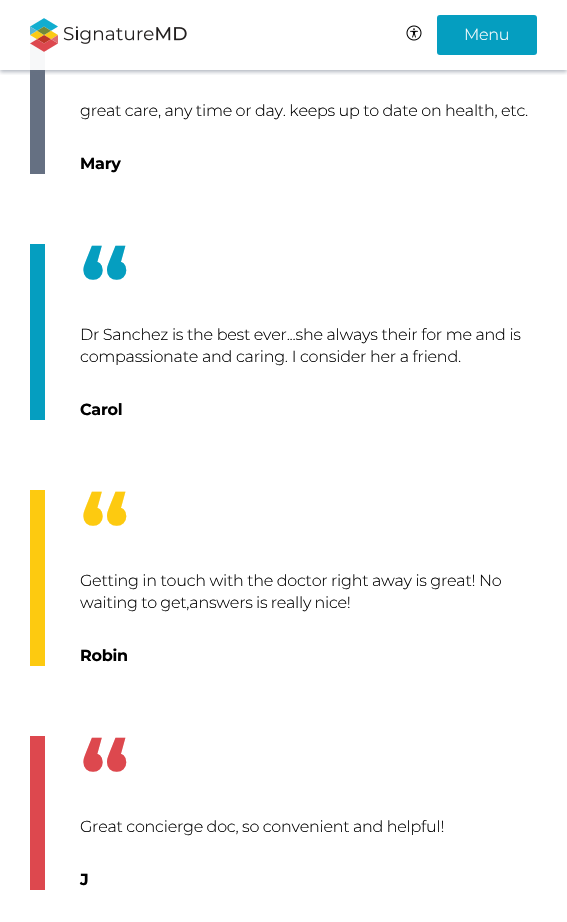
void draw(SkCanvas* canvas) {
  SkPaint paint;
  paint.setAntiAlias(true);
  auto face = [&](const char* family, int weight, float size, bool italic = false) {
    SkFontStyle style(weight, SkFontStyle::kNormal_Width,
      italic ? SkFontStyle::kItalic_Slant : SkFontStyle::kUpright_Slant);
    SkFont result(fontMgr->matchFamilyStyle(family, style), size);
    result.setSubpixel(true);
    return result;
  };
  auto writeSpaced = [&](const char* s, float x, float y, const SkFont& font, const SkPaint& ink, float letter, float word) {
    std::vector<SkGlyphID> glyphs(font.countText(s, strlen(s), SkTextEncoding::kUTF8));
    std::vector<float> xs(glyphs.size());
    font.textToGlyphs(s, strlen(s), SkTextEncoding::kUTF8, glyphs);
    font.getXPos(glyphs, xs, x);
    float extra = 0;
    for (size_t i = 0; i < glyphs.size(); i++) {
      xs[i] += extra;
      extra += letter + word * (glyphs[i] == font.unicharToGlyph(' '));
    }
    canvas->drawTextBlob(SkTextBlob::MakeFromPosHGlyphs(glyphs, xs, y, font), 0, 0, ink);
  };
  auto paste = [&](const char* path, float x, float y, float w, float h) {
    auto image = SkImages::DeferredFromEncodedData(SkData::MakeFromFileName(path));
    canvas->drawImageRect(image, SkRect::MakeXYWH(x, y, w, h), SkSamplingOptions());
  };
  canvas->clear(0xffffffff);
  paint.setColor(0xff657082);
  canvas->drawRect(SkRect::MakeXYWH(30, 70, 15, 104), paint);
  paint.setColor(0xfff7f8f9);
  canvas->drawRect(SkRect::MakeXYWH(30, 20, 15, 50), paint);
  canvas->save();
  canvas->clipRect(SkRect::MakeXYWH(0, 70, 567, 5));
  paint.setColor(0x80657082);
  paint.setMaskFilter(SkMaskFilter::MakeBlur(kNormal_SkBlurStyle, 2));
  canvas->drawRect(SkRect::MakeXYWH(0, 2, 567, 70), paint);
  paint.setMaskFilter(nullptr);
  canvas->restore();
  paste("img/1.png", 30, 18, 157, 34);
  paste("img/2.png", 406, 25, 16, 16);
  paint.setColor(0xff059ec0);
  canvas->drawRoundRect(SkRect::MakeXYWH(437, 15, 100, 40), 3, 3, paint);
  {
    const struct { float x, y, w, h; SkColor color; } items[] = {
      {30, 244, 15, 176, 0xff059ec0},
      {30, 490, 15, 176, 0xfffdca10},
      {30, 736, 15, 154, 0xffdd484e},
    };
    for (auto [x, y, w, h, color] : items) {
      paint.setColor(color);
      canvas->drawRect(SkRect::MakeXYWH(x, y, w, h), paint);
    }
  }
  auto f0 = face("Montserrat", 300, 16);
  paint.setColor(0xffffffff);
  writeSpaced("Menu", 464, 40, f0, paint, -0.25f, 0);
  paint.setColor(0xff000000);
  writeSpaced("great care, any time or day. keeps up to date on health, etc.", 80, 116, f0, paint, -0.25f, -0.25f);
  auto f1 = face("Montserrat", 700, 16);
  writeSpaced("Mary", 80, 169, f1, paint, -0.25f, 0);
  auto f2 = face("Montserrat", 700, 100);
  paint.setColor(0xff059ec0);
  writeSpaced("“", 80, 320, f2, paint, -0.25f, 0);
  paint.setColor(0xff000000);
  writeSpaced("Dr Sanchez is the best ever...she always their for me and is", 80, 340, f0, paint, -0.25f, -0.1f);
  writeSpaced("compassionate and caring. I consider her a friend.", 80, 362, f0, paint, -0.25f, 0);
  writeSpaced("Carol", 80, 415, f1, paint, -0.25f, 0);
  paint.setColor(0xfffdca10);
  writeSpaced("“", 80, 566, f2, paint, -0.25f, 0);
  paint.setColor(0xff000000);
  writeSpaced("Getting in touch with the doctor right away is great! No", 80, 586, f0, paint, -0.25f, -0.25f);
  writeSpaced("waiting to get,answers is really nice!", 80, 608, f0, paint, -0.25f, -0.5f);
  writeSpaced("Robin", 80, 661, f1, paint, -0.25f, 0);
  paint.setColor(0xffdd484e);
  writeSpaced("“", 80, 812, f2, paint, -0.25f, 0);
  paint.setColor(0xff000000);
  writeSpaced("Great concierge doc, so convenient and helpful!", 80, 832, f0, paint, -0.25f, -0.25f);
  writeSpaced("J", 80, 885, f1, paint, -0.25f, 0);
}
